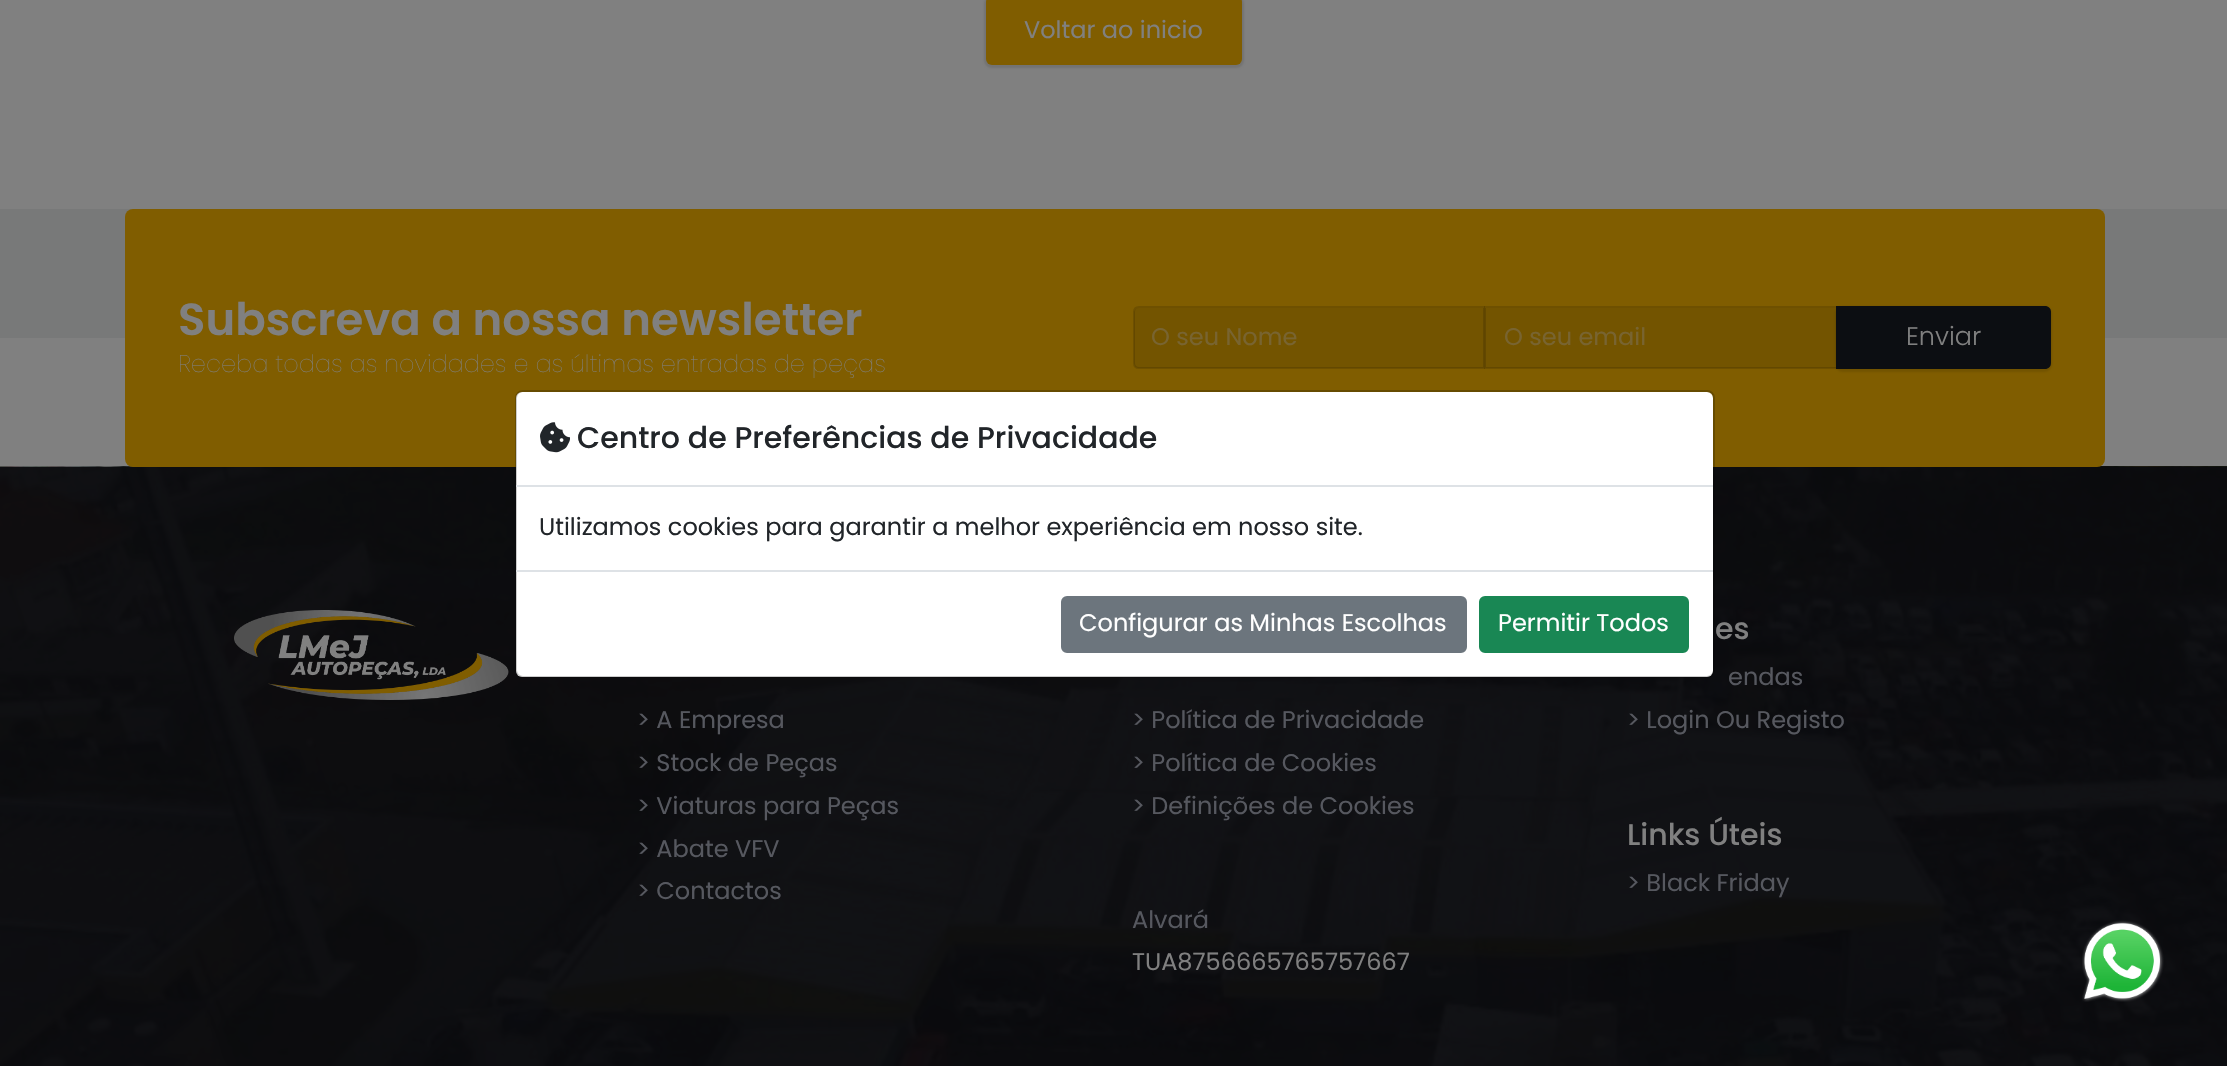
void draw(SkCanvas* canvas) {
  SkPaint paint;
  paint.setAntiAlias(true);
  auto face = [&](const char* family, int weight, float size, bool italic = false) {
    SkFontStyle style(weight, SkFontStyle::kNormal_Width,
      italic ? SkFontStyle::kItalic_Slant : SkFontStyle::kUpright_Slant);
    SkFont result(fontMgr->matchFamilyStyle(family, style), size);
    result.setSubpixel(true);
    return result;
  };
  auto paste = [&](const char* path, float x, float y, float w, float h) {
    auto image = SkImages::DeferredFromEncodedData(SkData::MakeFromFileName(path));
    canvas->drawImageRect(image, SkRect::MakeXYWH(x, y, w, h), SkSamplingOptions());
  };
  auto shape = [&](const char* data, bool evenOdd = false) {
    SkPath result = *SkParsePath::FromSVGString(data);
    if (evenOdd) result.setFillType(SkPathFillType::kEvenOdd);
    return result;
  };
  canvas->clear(0xff808080);
  paint.setColor(0x1a000000);
  paint.setMaskFilter(SkMaskFilter::MakeBlur(kNormal_SkBlurStyle, 1));
  canvas->drawRoundRect(SkRect::MakeXYWH(984, -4, 260, 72), 8, 8, paint);
  paint.setMaskFilter(nullptr);
  paint.setColor(0xff805d00);
  canvas->drawRoundRect(SkRect::MakeXYWH(986, -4, 256, 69), 6, 6, paint);
  paint.setColor(0xff787979);
  canvas->drawRect(SkRect::MakeXYWH(0, 209, 2227, 129), paint);
  paste("img/1.png", 0, 466, 2227, 600);
  paint.setColor(0xff805d00);
  canvas->drawRoundRect(SkRect::MakeXYWH(125, 209, 1980, 258), 8, 8, paint);
  paint.setColor(0xff735400);
  canvas->drawPath(shape("M1139 308H1484V368H1139C1136 368 1134 366 1134 363V313C1134 310 1136 308 1139 308Z"), paint);
  paint.setStroke(true);
  paint.setStrokeWidth(2);
  paint.setColor(0x24000000);
  canvas->drawPath(shape("M1139 307H1484V368H1139C1136 368 1134 366 1134 363V312C1134 309 1136 307 1139 307Z"), paint);
  paint.setStroke(false);
  paint.setColor(0xff735400);
  canvas->drawRect(SkRect::MakeXYWH(1485, 308, 351, 60), paint);
  paint.setStroke(true);
  paint.setColor(0x24000000);
  canvas->drawRect(SkRect::MakeXYWH(1485, 307, 352, 61), paint);
  paint.setStroke(false);
  paint.setColor(0x1a000000);
  paint.setMaskFilter(SkMaskFilter::MakeBlur(kNormal_SkBlurStyle, 1));
  canvas->drawRoundRect(SkRect::MakeXYWH(1835, 306, 217, 66), 8, 8, paint);
  paint.setMaskFilter(nullptr);
  paint.setColor(0xff0c0e12);
  canvas->drawPath(shape("M1836 306H2045C2048.5 306 2051 308.5 2051 312V363C2051 366.5 2048.5 369 2045 369H1836Z"), paint);
  paste("img/2.png", 234, 610, 275, 90);
  paste("img/3.png", 2082, 920, 82, 82);
  paint.setColor(0xffffffff);
  canvas->drawRoundRect(SkRect::MakeXYWH(516, 392, 1197, 285), 6, 6, paint);
  paint.setStroke(true);
  paint.setColor(0x33000000);
  canvas->drawRoundRect(SkRect::MakeXYWH(516, 391, 1198, 286), 7, 7, paint);
  paint.setStroke(false);
  paint.setColor(0xffdee2e6);
  canvas->drawRect(SkRect::MakeXYWH(516, 485, 1197, 2), paint);
  paste("img/4.png", 540, 422, 30, 31);
  canvas->drawRect(SkRect::MakeXYWH(516, 570, 1197, 2), paint);
  paint.setColor(0xff6c757d);
  canvas->drawRoundRect(SkRect::MakeXYWH(1062, 597, 404, 55), 5, 5, paint);
  paint.setStroke(true);
  canvas->drawRoundRect(SkRect::MakeXYWH(1062, 597, 404, 55), 5, 5, paint);
  paint.setStroke(false);
  paint.setColor(0xff198754);
  canvas->drawRoundRect(SkRect::MakeXYWH(1480, 597, 208, 55), 5, 5, paint);
  paint.setStroke(true);
  canvas->drawRoundRect(SkRect::MakeXYWH(1480, 597, 208, 55), 5, 5, paint);
  auto f0 = face("Poppins", 400, 24);
  paint.setStroke(false);
  paint.setColor(0xff808080);
  canvas->drawString("Voltar ao inicio", 1024, 38, f0, paint);
  auto f1 = face("Poppins", 600, 45);
  canvas->drawString("Subscreva a nossa newsletter", 178, 335, f1, paint);
  auto f2 = face("Poppins", 200, 24);
  canvas->drawString("Receba todas as novidades e as últimas entradas de peças", 178, 372, f2, paint);
  paint.setColor(0xff786431);
  canvas->drawString("O seu Nome", 1151, 345, f0, paint);
  canvas->drawString("O seu email", 1504, 345, f0, paint);
  auto f3 = face("Poppins", 300, 25.5f);
  paint.setColor(0xff808080);
  canvas->drawString("Enviar", 1906, 345, f3, paint);
  paint.setColor(0xff56585f);
  {
    const struct { const char* s; float x, y; } items[] = {
      {"> A Empresa", 637, 728},
      {"> Stock de Peças", 637, 771},
      {"> Viaturas para Peças", 637, 814},
      {"> Abate VFV", 637, 857},
      {"> Contactos", 637, 899},
      {"> Política de Privacidade", 1132, 728},
      {"> Política de Cookies", 1132, 771},
      {"> Definições de Cookies", 1132, 814},
      {"Alvará", 1132, 928},
    };
    for (auto [s, x, y] : items) {
      canvas->drawString(s, x, y, f0, paint);
    }
  }
  paint.setColor(0xff808080);
  canvas->drawString("TUA8756665765757667", 1132, 970, f0, paint);
  auto f4 = face("Poppins", 500, 30);
  canvas->drawString("es", 1715, 639, f4, paint);
  paint.setColor(0xff56585f);
  canvas->drawString("endas", 1728, 685, f0, paint);
  canvas->drawString("> Login Ou Registo", 1627, 728, f0, paint);
  paint.setColor(0xff808080);
  canvas->drawString("Links Úteis", 1627, 845, f4, paint);
  paint.setColor(0xff56585f);
  canvas->drawString("> Black Friday", 1627, 891, f0, paint);
  paint.setColor(0xff212529);
  canvas->drawString("Centro de Preferências de Privacidade", 577, 448, f4, paint);
  canvas->drawString("Utilizamos cookies para garantir a melhor experiência em nosso site.", 539, 535, f0, paint);
  paint.setColor(0xffffffff);
  canvas->drawString("Configurar as Minhas Escolhas", 1079, 631, f0, paint);
  canvas->drawString("Permitir Todos", 1498, 631, f0, paint);
}
